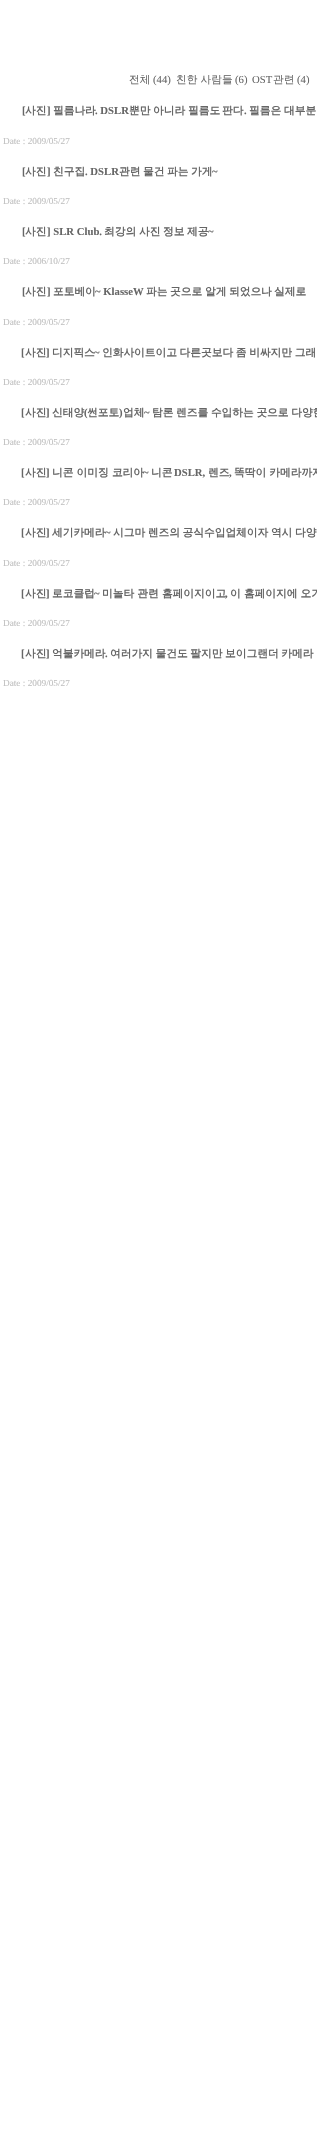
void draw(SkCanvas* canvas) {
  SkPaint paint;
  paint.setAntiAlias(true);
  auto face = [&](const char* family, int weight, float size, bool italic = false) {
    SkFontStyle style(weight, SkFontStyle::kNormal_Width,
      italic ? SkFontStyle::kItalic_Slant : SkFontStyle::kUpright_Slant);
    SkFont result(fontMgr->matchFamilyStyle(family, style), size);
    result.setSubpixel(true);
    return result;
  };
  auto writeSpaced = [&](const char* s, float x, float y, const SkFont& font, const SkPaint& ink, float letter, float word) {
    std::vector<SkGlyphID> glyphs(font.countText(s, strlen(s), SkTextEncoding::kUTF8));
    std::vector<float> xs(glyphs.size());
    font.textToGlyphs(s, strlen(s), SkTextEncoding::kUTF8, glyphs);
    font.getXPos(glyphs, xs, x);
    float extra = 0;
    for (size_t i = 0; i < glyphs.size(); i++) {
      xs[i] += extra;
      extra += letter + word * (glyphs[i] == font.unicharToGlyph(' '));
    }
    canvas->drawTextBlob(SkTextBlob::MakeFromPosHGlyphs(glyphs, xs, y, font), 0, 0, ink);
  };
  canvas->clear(0xffffffff);
  auto f0 = face("WenQuanYi Zen Hei", 500, 10.7f);
  paint.setColor(0xff666666);
  canvas->drawString("전체", 129, 83, f0, paint);
  auto f1 = face("Liberation Serif", 400, 10.7f);
  canvas->drawString("(44)", 153, 83, f1, paint);
  canvas->drawString("친한 사람들", 176, 83, f0, paint);
  canvas->drawString("(6)", 235, 83, f1, paint);
  canvas->drawString("OST", 252, 83, f1, paint);
  canvas->drawString("관련", 273, 83, f0, paint);
  canvas->drawString("(4)", 297, 83, f1, paint);
  auto f2 = face("Liberation Serif", 700, 10.7f);
  canvas->drawString("[", 22, 114, f2, paint);
  auto f3 = face("WenQuanYi Zen Hei", 700, 10.7f);
  canvas->drawString("사진", 25, 114, f3, paint);
  canvas->drawString("]", 47, 114, f2, paint);
  canvas->drawString("필름나라", 53, 114, f3, paint);
  canvas->drawString(". DSLR", 95, 114, f2, paint);
  {
    const struct { const char* s; float x, y; } items[] = {
      {"뿐만", 129, 114},
      {"아니라", 153, 114},
      {"필름도", 188, 114},
      {"판다", 222, 114},
    };
    for (auto [s, x, y] : items) {
      canvas->drawString(s, x, y, f3, paint);
    }
  }
  canvas->drawString(".", 244, 114, f2, paint);
  canvas->drawString("필름은", 249, 114, f3, paint);
  canvas->drawString("대부분", 284, 114, f3, paint);
  auto f4 = face("Liberation Serif", 400, 9.25f);
  paint.setColor(0xffc0c0c0);
  canvas->drawString("Date : 2009/05/27", 3, 144, f4, paint);
  paint.setColor(0xff666666);
  canvas->drawString("[", 22, 175, f2, paint);
  canvas->drawString("사진", 25, 175, f3, paint);
  canvas->drawString("]", 47, 175, f2, paint);
  canvas->drawString("친구집", 53, 175, f3, paint);
  canvas->drawString(". DSLR", 85, 175, f2, paint);
  {
    const struct { const char* s; float x, y; } items[] = {
      {"관련", 119, 175},
      {"물건", 143, 175},
      {"파는", 167, 175},
      {"가게", 191, 175},
    };
    for (auto [s, x, y] : items) {
      canvas->drawString(s, x, y, f3, paint);
    }
  }
  canvas->drawString("~", 212, 175, f2, paint);
  paint.setColor(0xffc0c0c0);
  canvas->drawString("Date : 2009/05/27", 3, 204, f4, paint);
  paint.setColor(0xff666666);
  canvas->drawString("[", 22, 235, f2, paint);
  canvas->drawString("사진", 25, 235, f3, paint);
  canvas->drawString("] SLR Club.", 47, 235, f2, paint);
  {
    const struct { const char* s; float x, y; } items[] = {
      {"최강의", 104, 235},
      {"사진", 139, 235},
      {"정보", 163, 235},
      {"제공", 187, 235},
    };
    for (auto [s, x, y] : items) {
      canvas->drawString(s, x, y, f3, paint);
    }
  }
  canvas->drawString("~", 208, 235, f2, paint);
  paint.setColor(0xffc0c0c0);
  canvas->drawString("Date : 2006/10/27", 3, 264, f4, paint);
  paint.setColor(0xff666666);
  canvas->drawString("[", 22, 295, f2, paint);
  canvas->drawString("사진", 25, 295, f3, paint);
  canvas->drawString("]", 47, 295, f2, paint);
  canvas->drawString("포토베이", 53, 295, f3, paint);
  canvas->drawString("~ KlasseW", 95, 295, f2, paint);
  {
    const struct { const char* s; float x, y; } items[] = {
      {"파는", 146, 295},
      {"곳으로", 170, 295},
      {"알게", 205, 295},
      {"되었으나", 229, 295},
      {"실제로", 274, 295},
    };
    for (auto [s, x, y] : items) {
      canvas->drawString(s, x, y, f3, paint);
    }
  }
  paint.setColor(0xffc0c0c0);
  canvas->drawString("Date : 2009/05/27", 3, 325, f4, paint);
  paint.setColor(0xff666666);
  canvas->drawString("[", 21, 356, f2, paint);
  canvas->drawString("사진", 25, 356, f3, paint);
  canvas->drawString("]", 46, 356, f2, paint);
  canvas->drawString("디지픽스", 52, 356, f3, paint);
  canvas->drawString("~", 94, 356, f2, paint);
  writeSpaced("인화사이트이고 다른곳보다 좀 비싸지만 그래", 102, 356, f3, paint, 0, -0.5f);
  paint.setColor(0xffc0c0c0);
  canvas->drawString("Date : 2009/05/27", 3, 385, f4, paint);
  paint.setColor(0xff666666);
  canvas->drawString("[", 21, 416, f2, paint);
  canvas->drawString("사진", 25, 416, f3, paint);
  canvas->drawString("]", 46, 416, f2, paint);
  canvas->drawString("신태양", 52, 416, f3, paint);
  canvas->drawString("(", 84, 416, f2, paint);
  canvas->drawString("썬포토", 87, 416, f3, paint);
  canvas->drawString(")", 119, 416, f2, paint);
  canvas->drawString("업체", 123, 416, f3, paint);
  canvas->drawString("~", 144, 416, f2, paint);
  writeSpaced("탐론 렌즈를 수입하는 곳으로 다양한", 152, 416, f3, paint, 0, -0.5f);
  paint.setColor(0xffc0c0c0);
  canvas->drawString("Date : 2009/05/27", 3, 445, f4, paint);
  paint.setColor(0xff666666);
  canvas->drawString("[", 21, 476, f2, paint);
  canvas->drawString("사진", 25, 476, f3, paint);
  canvas->drawString("]", 46, 476, f2, paint);
  canvas->drawString("니콘 이미징 코리아", 52, 476, f3, paint);
  canvas->drawString("~", 143, 476, f2, paint);
  canvas->drawString("니콘", 151, 476, f3, paint);
  canvas->drawString("DSLR,", 174, 476, f2, paint);
  canvas->drawString("렌즈", 208, 476, f3, paint);
  canvas->drawString("똑딱이 카메라까지", 234, 476, f3, paint);
  canvas->drawString(",", 229, 476, f2, paint);
  paint.setColor(0xffc0c0c0);
  canvas->drawString("Date : 2009/05/27", 3, 505, f4, paint);
  paint.setColor(0xff666666);
  canvas->drawString("[", 21, 536, f2, paint);
  canvas->drawString("사진", 25, 536, f3, paint);
  canvas->drawString("]", 46, 536, f2, paint);
  canvas->drawString("세기카메라", 52, 536, f3, paint);
  canvas->drawString("~", 105, 536, f2, paint);
  writeSpaced("시그마 렌즈의 공식수입업체이자 역시 다양", 113, 536, f3, paint, 0, -0.5f);
  paint.setColor(0xffc0c0c0);
  canvas->drawString("Date : 2009/05/27", 3, 566, f4, paint);
  paint.setColor(0xff666666);
  canvas->drawString("[", 21, 597, f2, paint);
  canvas->drawString("사진", 25, 597, f3, paint);
  canvas->drawString("]", 46, 597, f2, paint);
  canvas->drawString("로코클럽", 52, 597, f3, paint);
  canvas->drawString("~", 94, 597, f2, paint);
  canvas->drawString("미놀타 관련 홈페이지이고", 102, 597, f3, paint);
  canvas->drawString("이 홈페이지에 오기", 230, 597, f3, paint);
  canvas->drawString(",", 225, 597, f2, paint);
  paint.setColor(0xffc0c0c0);
  canvas->drawString("Date : 2009/05/27", 3, 626, f4, paint);
  paint.setColor(0xff666666);
  canvas->drawString("[", 21, 657, f2, paint);
  canvas->drawString("사진", 25, 657, f3, paint);
  canvas->drawString("]", 46, 657, f2, paint);
  canvas->drawString("억불카메라", 52, 657, f3, paint);
  canvas->drawString(".", 105, 657, f2, paint);
  writeSpaced("여러가지 물건도 팔지만 보이그랜더 카메라", 110, 657, f3, paint, 0, -0.5f);
  paint.setColor(0xffc0c0c0);
  canvas->drawString("Date : 2009/05/27", 3, 686, f4, paint);
}
